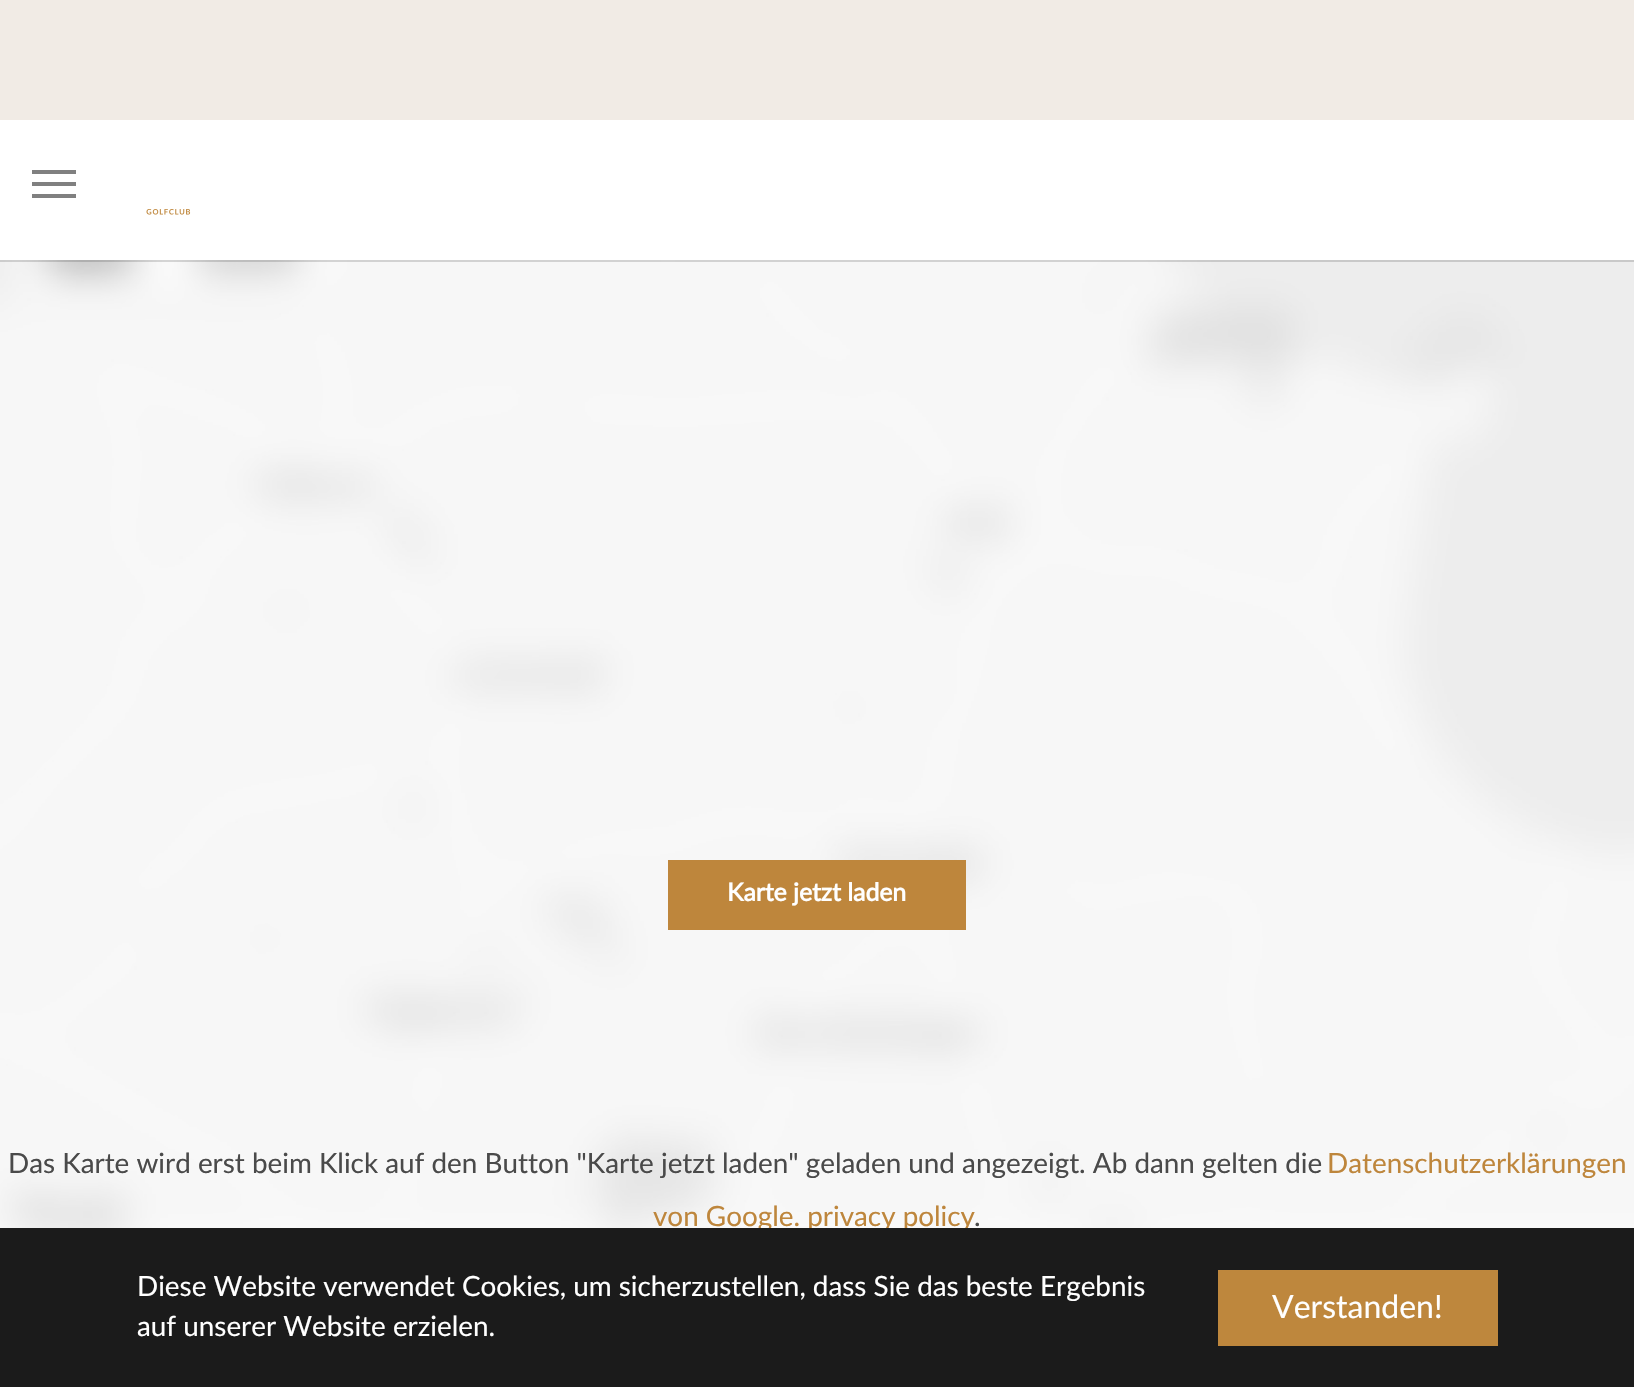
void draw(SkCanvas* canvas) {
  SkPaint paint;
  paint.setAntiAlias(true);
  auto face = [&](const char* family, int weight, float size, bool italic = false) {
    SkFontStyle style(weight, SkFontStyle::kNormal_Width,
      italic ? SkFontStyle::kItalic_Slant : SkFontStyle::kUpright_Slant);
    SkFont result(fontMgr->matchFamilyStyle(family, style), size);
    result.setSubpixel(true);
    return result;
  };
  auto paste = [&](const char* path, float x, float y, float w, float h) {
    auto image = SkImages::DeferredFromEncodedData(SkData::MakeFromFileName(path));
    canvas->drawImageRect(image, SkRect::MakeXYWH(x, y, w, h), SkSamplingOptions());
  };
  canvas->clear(0xffffffff);
  paint.setColor(0xfff1ebe5);
  canvas->drawRect(SkRect::MakeXYWH(0, 0, 1634, 120), paint);
  paste("img/2.png", 0, 260, 1634, 968);
  {
    const struct { float x, y, w, h; SkColor color; } items[] = {
      {0, 260, 1634, 2, 0x26000000},
      {32, 182, 44, 4, 0xff808080},
      {32, 170, 44, 4, 0xff808080},
      {32, 194, 44, 4, 0xff808080},
    };
    for (auto [x, y, w, h, color] : items) {
      paint.setColor(color);
      canvas->drawRect(SkRect::MakeXYWH(x, y, w, h), paint);
    }
  }
  paste("img/1.png", 146, 209, 45, 6);
  paint.setColor(0xffbe863c);
  canvas->drawRect(SkRect::MakeXYWH(668, 860, 298, 70), paint);
  auto f0 = face("Lato", 700, 24.75f);
  paint.setColor(0xffffffff);
  canvas->drawString("Karte jetzt laden", 727, 901, f0, paint);
  auto f1 = face("Lato", 400, 27.85f);
  paint.setColor(0xff4a4a4a);
  canvas->drawString("Das Karte wird erst beim Klick auf den Button \"Karte jetzt laden\" geladen und angezeigt. Ab dann gelten die", 8, 1173, f1, paint);
  paint.setColor(0xffbe863c);
  canvas->drawString("Datenschutzerklärungen", 1327, 1173, f1, paint);
  canvas->drawString("von Google. privacy policy", 653, 1226, f1, paint);
  paint.setColor(0xff4a4a4a);
  canvas->drawString(".", 974, 1226, f1, paint);
  paint.setColor(0xff1b1b1b);
  canvas->drawRect(SkRect::MakeXYWH(0, 1228, 1634, 159), paint);
  paint.setColor(0xffffffff);
  canvas->drawString("Diese Website verwendet Cookies, um sicherzustellen, dass Sie das beste Ergebnis", 137, 1296, f1, paint);
  canvas->drawString("auf unserer Website erzielen.", 137, 1336, f1, paint);
  paint.setColor(0xffbe873d);
  canvas->drawRect(SkRect::MakeXYWH(1218, 1270, 280, 76), paint);
  auto f2 = face("Lato", 400, 32);
  paint.setColor(0xffffffff);
  canvas->drawString("Verstanden!", 1272, 1318, f2, paint);
}
